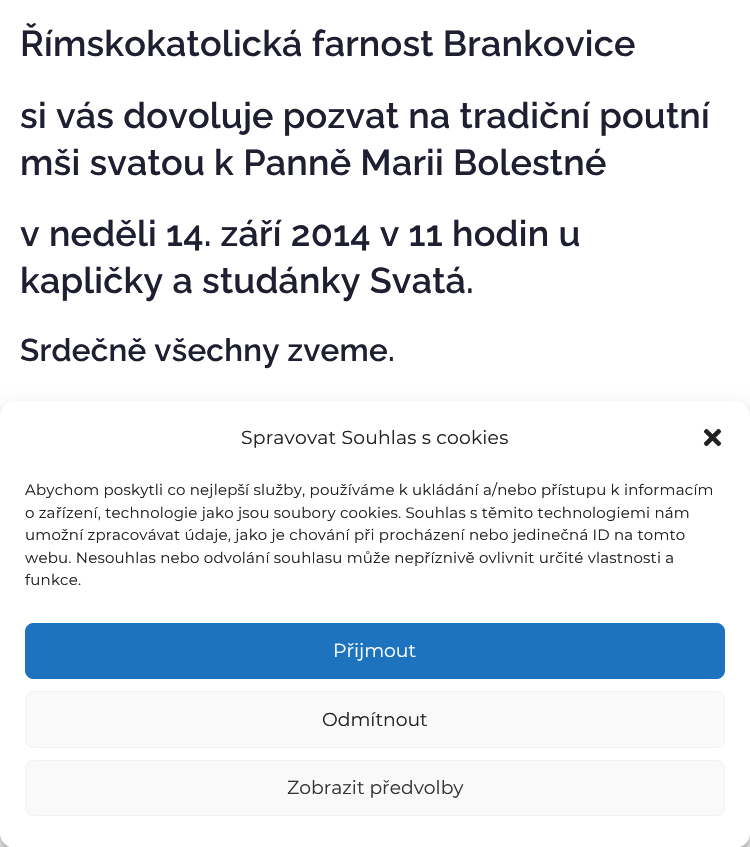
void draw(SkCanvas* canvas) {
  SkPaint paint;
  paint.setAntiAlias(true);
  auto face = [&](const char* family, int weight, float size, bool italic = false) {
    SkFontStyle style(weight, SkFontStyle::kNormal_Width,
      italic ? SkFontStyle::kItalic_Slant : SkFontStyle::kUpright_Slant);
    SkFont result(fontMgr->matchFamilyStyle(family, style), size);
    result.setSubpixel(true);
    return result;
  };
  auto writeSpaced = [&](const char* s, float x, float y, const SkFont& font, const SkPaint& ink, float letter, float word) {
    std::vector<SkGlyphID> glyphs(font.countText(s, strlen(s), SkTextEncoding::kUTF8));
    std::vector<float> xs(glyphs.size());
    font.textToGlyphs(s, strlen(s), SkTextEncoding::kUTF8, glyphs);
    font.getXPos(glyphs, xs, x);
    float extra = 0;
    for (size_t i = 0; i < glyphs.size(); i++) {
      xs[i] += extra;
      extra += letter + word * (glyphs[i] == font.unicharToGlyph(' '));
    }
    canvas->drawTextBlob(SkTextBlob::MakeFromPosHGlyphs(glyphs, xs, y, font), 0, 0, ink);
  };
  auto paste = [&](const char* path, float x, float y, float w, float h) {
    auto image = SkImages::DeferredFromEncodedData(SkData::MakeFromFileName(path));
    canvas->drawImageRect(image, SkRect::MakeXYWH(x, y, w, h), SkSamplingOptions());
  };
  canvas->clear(0xffffffff);
  paint.setColor(0x3b000000);
  paint.setMaskFilter(SkMaskFilter::MakeBlur(kNormal_SkBlurStyle, 4));
  canvas->drawRoundRect(SkRect::MakeXYWH(0, 409, 750, 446), 15, 15, paint);
  paint.setMaskFilter(nullptr);
  paint.setColor(0x30000000);
  paint.setMaskFilter(SkMaskFilter::MakeBlur(kNormal_SkBlurStyle, 12.5f));
  canvas->drawRoundRect(SkRect::MakeXYWH(0, 414, 750, 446), 15, 15, paint);
  paint.setMaskFilter(nullptr);
  paint.setColor(0xffffffff);
  canvas->drawRoundRect(SkRect::MakeXYWH(0, 401, 750, 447), 15, 15, paint);
  paste("img/1.png", 703, 428, 19, 19);
  paint.setColor(0xff1e73be);
  canvas->drawRoundRect(SkRect::MakeXYWH(25.5f, 623.5f, 699, 55), 7.5f, 7.5f, paint);
  paint.setStroke(true);
  paint.setStrokeWidth(1);
  canvas->drawRoundRect(SkRect::MakeXYWH(25.5f, 623.5f, 699, 55), 7.5f, 7.5f, paint);
  paint.setStroke(false);
  paint.setColor(0xfff9f9f9);
  canvas->drawRoundRect(SkRect::MakeXYWH(25.5f, 691.5f, 699, 56), 7.5f, 7.5f, paint);
  paint.setStroke(true);
  paint.setColor(0xfff2f2f2);
  canvas->drawRoundRect(SkRect::MakeXYWH(25.5f, 691.5f, 699, 56), 7.5f, 7.5f, paint);
  paint.setStroke(false);
  paint.setColor(0xfff9f9f9);
  canvas->drawRoundRect(SkRect::MakeXYWH(25.5f, 760.5f, 699, 55), 7.5f, 7.5f, paint);
  paint.setStroke(true);
  paint.setColor(0xfff2f2f2);
  canvas->drawRoundRect(SkRect::MakeXYWH(25.5f, 760.5f, 699, 55), 7.5f, 7.5f, paint);
  auto f0 = face("Raleway", 100, 36);
  paint.setStroke(false);
  paint.setColor(0xff1f1f32);
  {
    const struct { const char* s; float x, y; } items[] = {
      {"Římskokatolická farnost Brankovice", 20, 56},
      {"si vás dovoluje pozvat na tradiční poutní", 20, 128},
      {"mši svatou k Panně Marii Bolestné", 20, 175},
      {"v neděli 14. září 2014 v 11 hodin u", 20, 246},
      {"kapličky a studánky Svatá.", 20, 293},
    };
    for (auto [s, x, y] : items) {
      writeSpaced(s, x, y, f0, paint, 0.2f, 0);
    }
  }
  auto f1 = face("Raleway", 100, 31.5f);
  writeSpaced("Srdečně všechny zveme.", 20, 361, f1, paint, 0.2f, 0);
  auto f2 = face("Montserrat", 100, 18.75f);
  paint.setColor(0xff222222);
  writeSpaced("Spravovat Souhlas s cookies", 241, 444, f2, paint, 0.2f, 0);
  auto f3 = face("Montserrat", 100, 15);
  {
    const struct { const char* s; float x, y; } items[] = {
      {"Abychom poskytli co nejlepší služby, používáme k ukládání a/nebo přístupu k informacím", 25, 495},
      {"o zařízení, technologie jako jsou soubory cookies. Souhlas s těmito technologiemi nám", 25, 518},
      {"umožní zpracovávat údaje, jako je chování při procházení nebo jedinečná ID na tomto", 25, 540},
      {"webu. Nesouhlas nebo odvolání souhlasu může nepříznivě ovlivnit určité vlastnosti a", 25, 563},
      {"funkce.", 25, 585},
    };
    for (auto [s, x, y] : items) {
      writeSpaced(s, x, y, f3, paint, 0.2f, 0);
    }
  }
  paint.setColor(0xffffffff);
  canvas->drawString("Přijmout", 333, 657, f2, paint);
  paint.setColor(0xff222222);
  canvas->drawString("Odmítnout", 322, 726, f2, paint);
  paint.setColor(0xff333333);
  canvas->drawString("Zobrazit předvolby", 287, 794, f2, paint);
}
